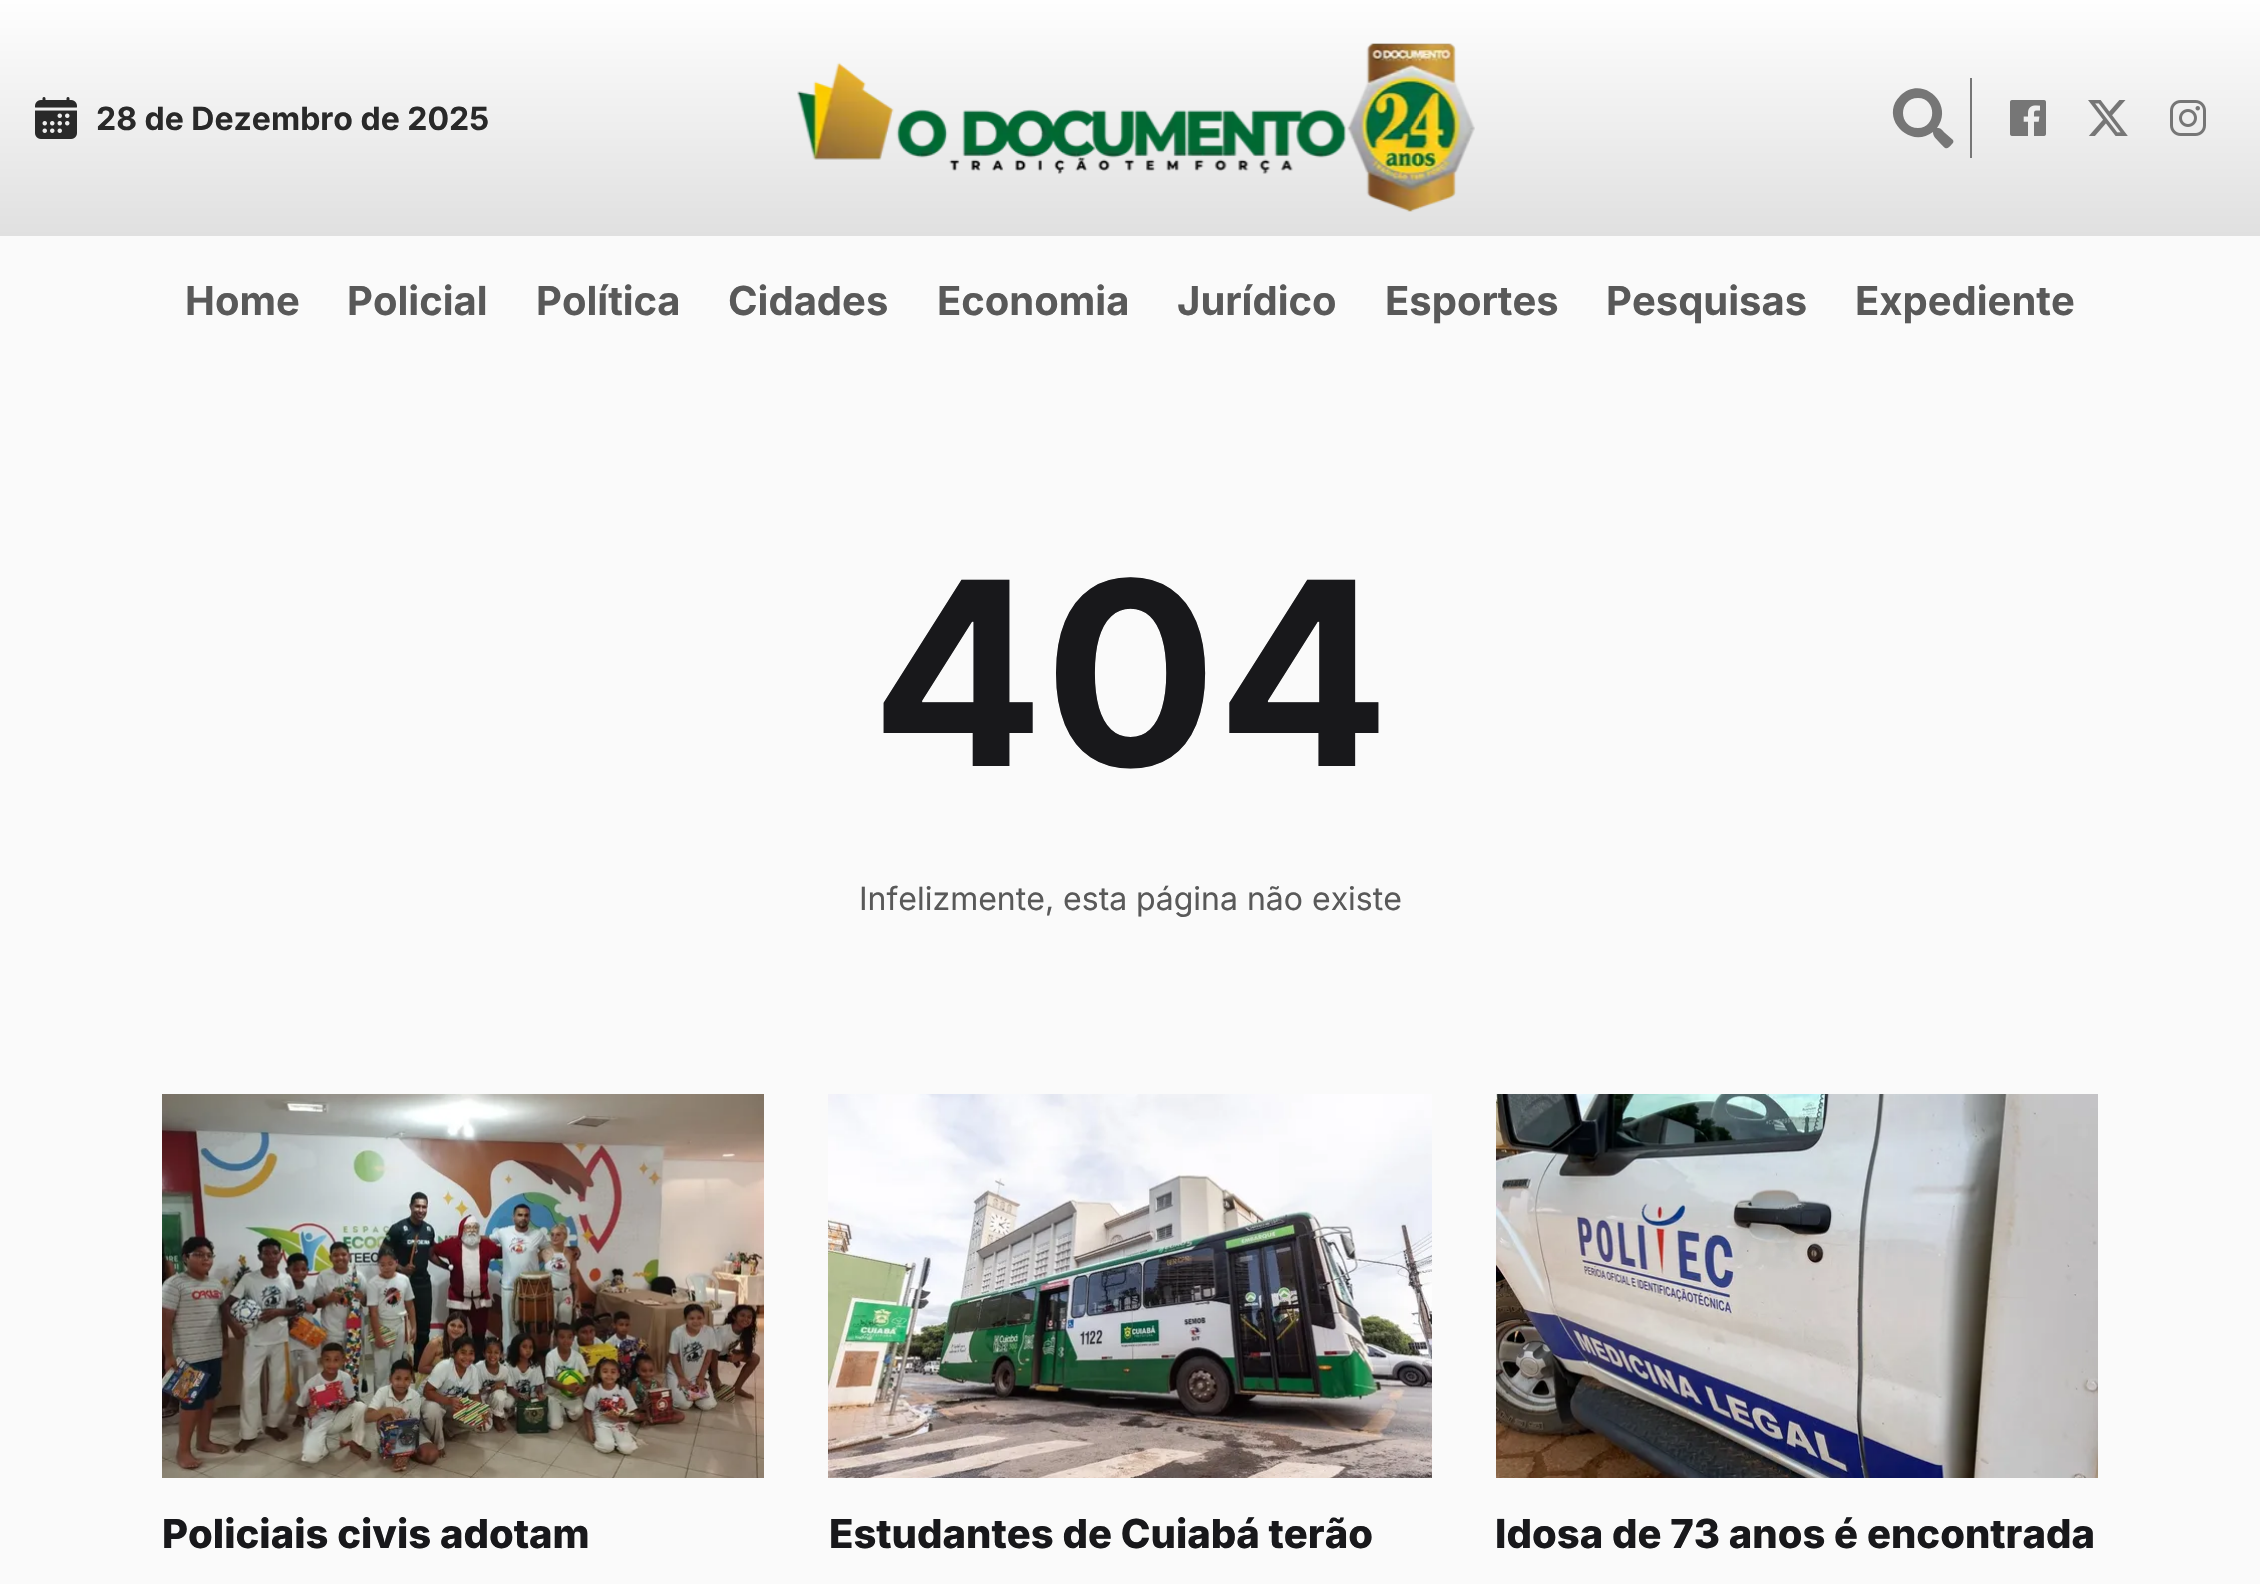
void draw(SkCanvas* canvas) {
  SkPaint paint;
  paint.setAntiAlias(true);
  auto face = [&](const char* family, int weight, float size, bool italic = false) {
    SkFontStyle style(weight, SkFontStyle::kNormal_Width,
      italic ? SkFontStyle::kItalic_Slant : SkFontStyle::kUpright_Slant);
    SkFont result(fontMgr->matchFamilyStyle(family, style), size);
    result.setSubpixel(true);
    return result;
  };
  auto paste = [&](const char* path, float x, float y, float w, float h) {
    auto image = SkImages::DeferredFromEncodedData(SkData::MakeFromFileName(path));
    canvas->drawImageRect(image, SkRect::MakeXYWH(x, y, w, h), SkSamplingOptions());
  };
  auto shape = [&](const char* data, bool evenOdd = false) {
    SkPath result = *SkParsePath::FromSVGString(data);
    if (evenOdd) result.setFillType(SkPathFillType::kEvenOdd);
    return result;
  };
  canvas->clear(0xfffafafa);
  {
    const SkColor colors[] = {0xfffefefe, 0xffe0e0e0};
    const float stops[] = {0, 1};
    const SkPoint ends[] = {{1130, 0}, {1130, 236}};
    paint.setShader(SkGradientShader::MakeLinear(ends, colors, stops, 2, SkTileMode::kClamp));
    paint.setAlpha(255);
  }
  canvas->drawRect(SkRect::MakeXYWH(0, 0, 2260, 236), paint);
  paste("img/1.png", 35, 97, 42, 42);
  paste("img/2.png", 797, 43, 678, 169);
  paint.setShader(nullptr);
  paint.setColor(0xff767676);
  canvas->drawRect(SkRect::MakeXYWH(1970, 78, 2, 80), paint);
  canvas->drawPath(shape("M1953 140C1954 142 1953 143 1952 144C1946 151 1946 149 1939 142C1936 138 1933 137 1933 132C1909 150 1879 117 1900 96C1922 74 1955 104 1937 128C1941 128 1941 129 1945 133ZM1918 128C1937 128 1937 98 1918 98C1898 98 1898 128 1918 128Z"), paint);
  paste("img/3.png", 2010, 100, 36, 36);
  paste("img/4.png", 2088, 100, 40, 36);
  paste("img/5.png", 2170, 100, 36, 36);
  paste("img/6.png", 162, 1094, 602, 384);
  paste("img/7.png", 828, 1094, 604, 384);
  paste("img/8.png", 1496, 1094, 602, 384);
  auto f0 = face("Inter", 700, 32);
  paint.setColor(0xff292929);
  canvas->drawString("28 de Dezembro de 2025", 96, 130, f0, paint);
  auto f1 = face("Inter", 700, 40);
  paint.setColor(0xff595959);
  {
    const struct { const char* s; float x, y; } items[] = {
      {"Home", 185, 315},
      {"Policial", 347, 315},
      {"Política", 536, 315},
      {"Cidades", 728, 315},
      {"Economia", 937, 315},
      {"Jurídico", 1177, 315},
      {"Esportes", 1385, 315},
      {"Pesquisas", 1606, 315},
      {"Expediente", 1855, 315},
    };
    for (auto [s, x, y] : items) {
      canvas->drawString(s, x, y, f1, paint);
    }
  }
  auto f2 = face("Inter", 700, 256);
  paint.setColor(0xff18181b);
  canvas->drawString("404", 871, 766, f2, paint);
  auto f3 = face("Inter", 400, 32);
  paint.setColor(0xff595959);
  canvas->drawString("Infelizmente, esta página não existe", 859, 910, f3, paint);
  auto f4 = face("Inter", 800, 40);
  paint.setColor(0xff18181b);
  {
    const struct { const char* s; float x, y; } items[] = {
      {"Policiais civis adotam", 162, 1548},
      {"Estudantes de Cuiabá terão", 829, 1548},
      {"Idosa de 73 anos é encontrada", 1495, 1548},
    };
    for (auto [s, x, y] : items) {
      canvas->drawString(s, x, y, f4, paint);
    }
  }
}
